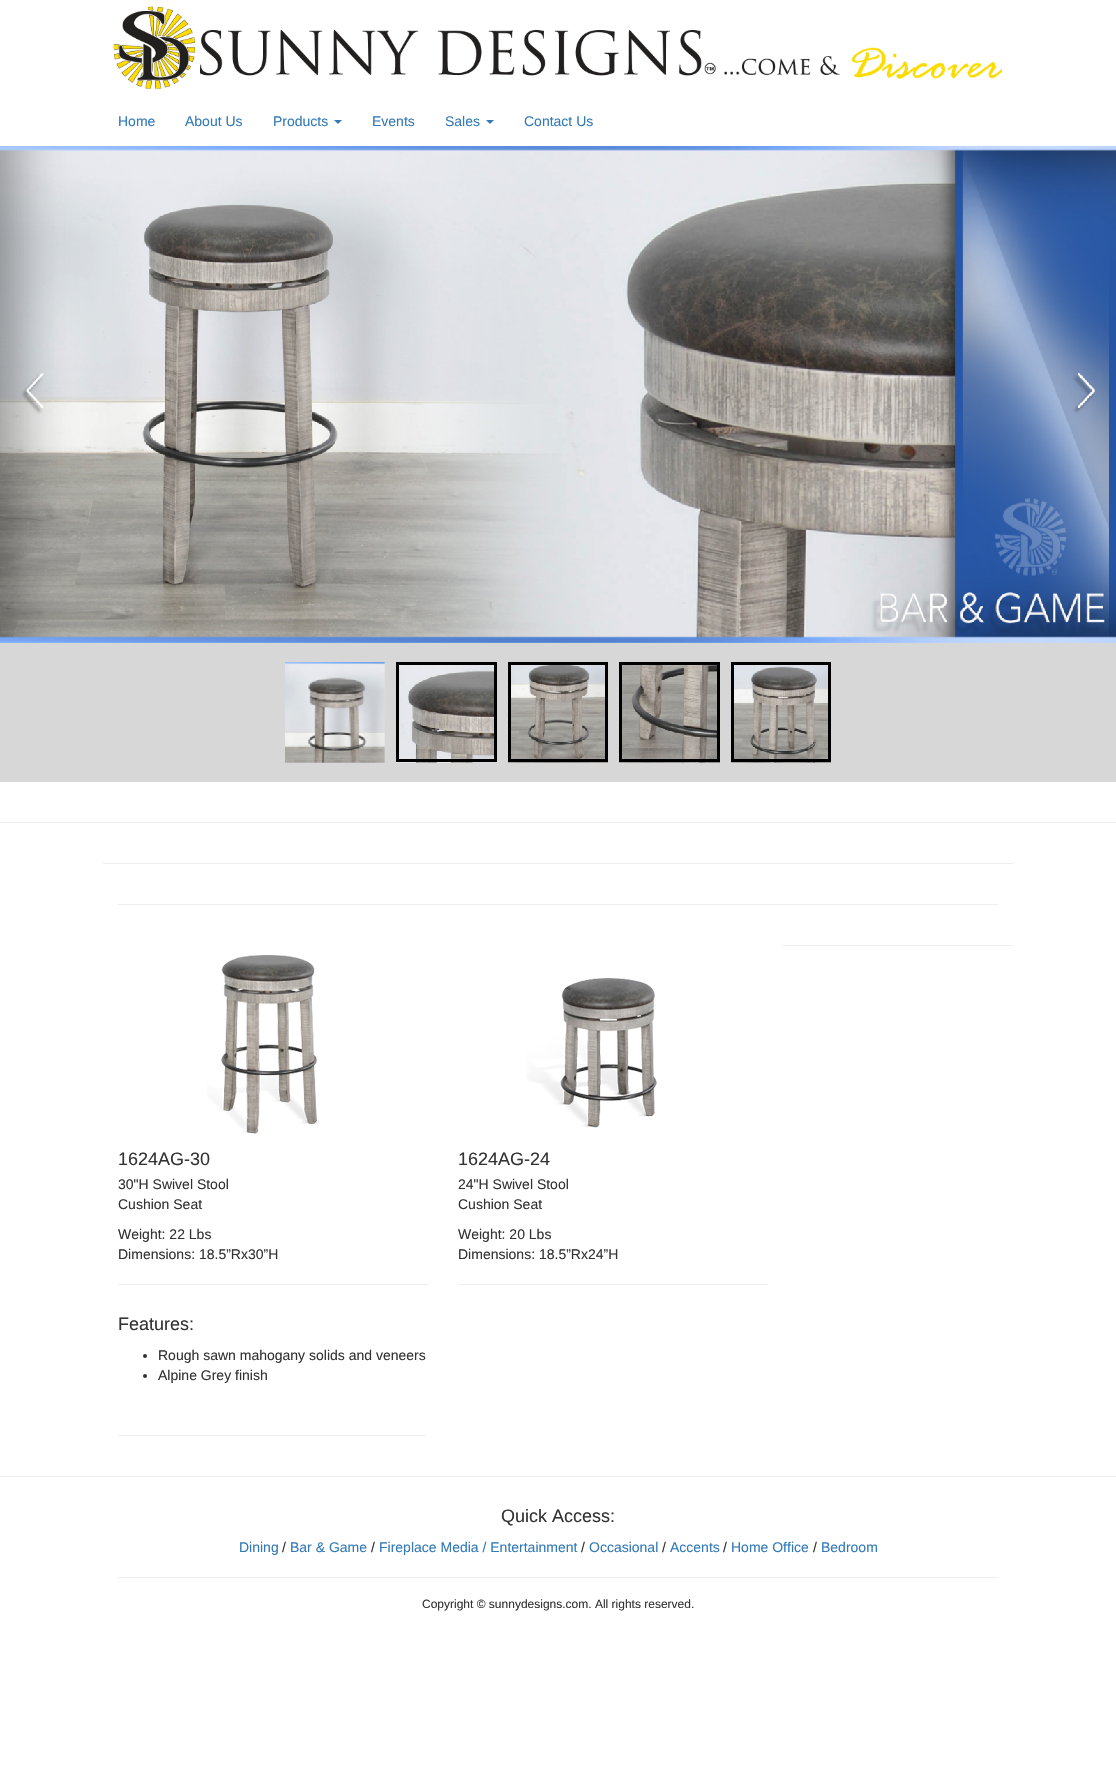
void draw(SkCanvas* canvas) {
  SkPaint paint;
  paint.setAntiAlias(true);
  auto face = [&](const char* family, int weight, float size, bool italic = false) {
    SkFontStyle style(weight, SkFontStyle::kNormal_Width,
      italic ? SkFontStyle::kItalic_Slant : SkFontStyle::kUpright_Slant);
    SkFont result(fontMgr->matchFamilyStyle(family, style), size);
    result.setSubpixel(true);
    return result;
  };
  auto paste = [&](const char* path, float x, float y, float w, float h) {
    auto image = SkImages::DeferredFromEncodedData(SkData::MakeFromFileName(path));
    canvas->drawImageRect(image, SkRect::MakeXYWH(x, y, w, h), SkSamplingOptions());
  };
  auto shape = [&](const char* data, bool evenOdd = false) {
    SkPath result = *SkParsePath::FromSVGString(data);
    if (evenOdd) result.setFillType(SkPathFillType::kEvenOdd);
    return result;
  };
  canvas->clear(0xffffffff);
  paste("img/1.png", 113, 6, 890, 83);
  paint.setColor(0xff337ab7);
  canvas->drawPath(shape("M334 120H342L338 124Z"), paint);
  canvas->drawPath(shape("M486 120H494L490 124Z"), paint);
  paint.setColor(0xffd7d7d7);
  canvas->drawRect(SkRect::MakeXYWH(0, 642, 1116, 140), paint);
  paste("img/2.png", 0, 146, 1116, 497);
  paste("img/3.png", 285, 662, 100, 101);
  paste("img/4.png", 396, 665, 101, 98);
  paint.setStroke(true);
  paint.setStrokeWidth(3);
  paint.setColor(0xff000000);
  canvas->drawRect(SkRect::MakeXYWH(397.5f, 663.5f, 98, 97), paint);
  paste("img/5.png", 508, 665, 100, 98);
  canvas->drawRect(SkRect::MakeXYWH(509.5f, 663.5f, 97, 97), paint);
  paste("img/6.png", 619, 665, 101, 98);
  canvas->drawRect(SkRect::MakeXYWH(620.5f, 663.5f, 98, 97), paint);
  paste("img/7.png", 731, 665, 100, 98);
  canvas->drawRect(SkRect::MakeXYWH(732.5f, 663.5f, 97, 97), paint);
  paint.setStroke(false);
  {
    const struct { float x, y, w, h; SkColor color; } items[] = {
      {0, 822, 1116, 1, 0xffeeeeee},
      {103, 863, 910, 1, 0xffeeeeee},
      {118, 904, 880, 1, 0xffeeeeee},
      {783, 945, 230, 1, 0xffeeeeee},
    };
    for (auto [x, y, w, h, color] : items) {
      paint.setColor(color);
      canvas->drawRect(SkRect::MakeXYWH(x, y, w, h), paint);
    }
  }
  paste("img/8.png", 207, 955, 113, 179);
  canvas->drawRect(SkRect::MakeXYWH(118, 1284, 310, 1), paint);
  paste("img/9.png", 526, 978, 131, 150);
  canvas->drawRect(SkRect::MakeXYWH(458, 1284, 310, 1), paint);
  paint.setColor(0xff333333);
  canvas->drawCircle(145, 1356, 2, paint);
  canvas->drawCircle(145, 1376, 2, paint);
  {
    const struct { float x, y, w, h; SkColor color; } items[] = {
      {118, 1435, 308, 1, 0xffeeeeee},
      {0, 1476, 1116, 1, 0xffeeeeee},
      {118, 1577, 880, 1, 0xffeeeeee},
    };
    for (auto [x, y, w, h, color] : items) {
      paint.setColor(color);
      canvas->drawRect(SkRect::MakeXYWH(x, y, w, h), paint);
    }
  }
  auto f0 = face("Liberation Sans", 400, 14);
  paint.setColor(0xff337ab7);
  {
    const struct { const char* s; float x, y; } items[] = {
      {"Home", 118, 126},
      {"About Us", 185, 126},
      {"Products", 273, 126},
      {"Events", 372, 126},
      {"Sales", 445, 126},
      {"Contact Us", 524, 126},
    };
    for (auto [s, x, y] : items) {
      canvas->drawString(s, x, y, f0, paint);
    }
  }
  auto f1 = face("Liberation Sans", 400, 18);
  paint.setColor(0xff333333);
  canvas->drawString("1624AG-30", 118, 1165, f1, paint);
  {
    const struct { const char* s; float x, y; } items[] = {
      {"30\"H Swivel Stool", 118, 1189},
      {"Cushion Seat", 118, 1209},
      {"Weight: 22 Lbs", 118, 1239},
      {"Dimensions: 18.5”Rx30”H", 118, 1259},
    };
    for (auto [s, x, y] : items) {
      canvas->drawString(s, x, y, f0, paint);
    }
  }
  canvas->drawString("1624AG-24", 458, 1165, f1, paint);
  {
    const struct { const char* s; float x, y; } items[] = {
      {"24\"H Swivel Stool", 458, 1189},
      {"Cushion Seat", 458, 1209},
      {"Weight: 20 Lbs", 458, 1239},
      {"Dimensions: 18.5”Rx24”H", 458, 1259},
    };
    for (auto [s, x, y] : items) {
      canvas->drawString(s, x, y, f0, paint);
    }
  }
  canvas->drawString("Features:", 118, 1330, f1, paint);
  canvas->drawString("Rough sawn mahogany solids and veneers", 158, 1360, f0, paint);
  canvas->drawString("Alpine Grey finish", 158, 1380, f0, paint);
  canvas->drawString("Quick Access:", 501, 1522, f1, paint);
  paint.setColor(0xff337ab7);
  canvas->drawString("Dining", 239, 1552, f0, paint);
  paint.setColor(0xff333333);
  canvas->drawString("/", 282, 1552, f0, paint);
  paint.setColor(0xff337ab7);
  canvas->drawString("Bar & Game", 290, 1552, f0, paint);
  paint.setColor(0xff333333);
  canvas->drawString("/", 371, 1552, f0, paint);
  paint.setColor(0xff337ab7);
  canvas->drawString("Fireplace Media / Entertainment", 379, 1552, f0, paint);
  paint.setColor(0xff333333);
  canvas->drawString("/", 581, 1552, f0, paint);
  paint.setColor(0xff337ab7);
  canvas->drawString("Occasional", 589, 1552, f0, paint);
  paint.setColor(0xff333333);
  canvas->drawString("/", 662, 1552, f0, paint);
  paint.setColor(0xff337ab7);
  canvas->drawString("Accents", 670, 1552, f0, paint);
  paint.setColor(0xff333333);
  canvas->drawString("/", 723, 1552, f0, paint);
  paint.setColor(0xff337ab7);
  canvas->drawString("Home Office", 731, 1552, f0, paint);
  paint.setColor(0xff333333);
  canvas->drawString("/", 813, 1552, f0, paint);
  paint.setColor(0xff337ab7);
  canvas->drawString("Bedroom", 821, 1552, f0, paint);
  auto f2 = face("Liberation Sans", 400, 12);
  paint.setColor(0xff333333);
  canvas->drawString("Copyright © sunnydesigns.com. All rights reserved.", 422, 1608, f2, paint);
}
